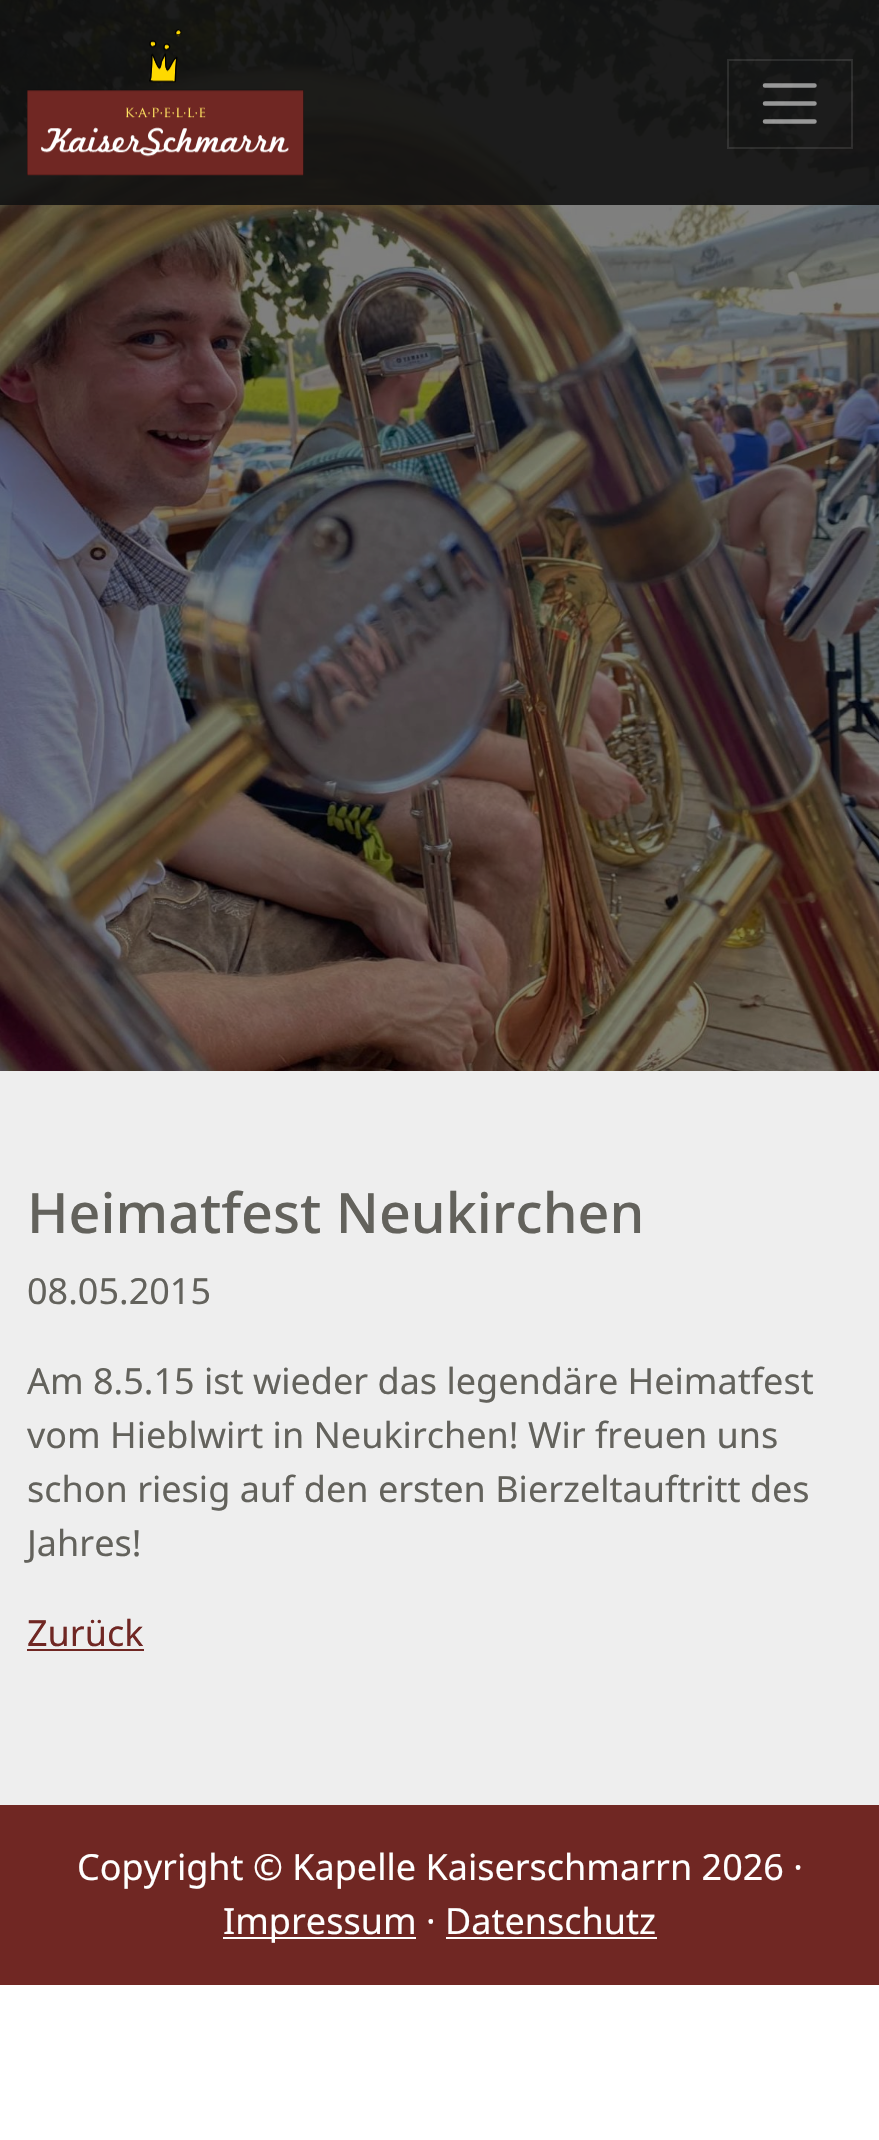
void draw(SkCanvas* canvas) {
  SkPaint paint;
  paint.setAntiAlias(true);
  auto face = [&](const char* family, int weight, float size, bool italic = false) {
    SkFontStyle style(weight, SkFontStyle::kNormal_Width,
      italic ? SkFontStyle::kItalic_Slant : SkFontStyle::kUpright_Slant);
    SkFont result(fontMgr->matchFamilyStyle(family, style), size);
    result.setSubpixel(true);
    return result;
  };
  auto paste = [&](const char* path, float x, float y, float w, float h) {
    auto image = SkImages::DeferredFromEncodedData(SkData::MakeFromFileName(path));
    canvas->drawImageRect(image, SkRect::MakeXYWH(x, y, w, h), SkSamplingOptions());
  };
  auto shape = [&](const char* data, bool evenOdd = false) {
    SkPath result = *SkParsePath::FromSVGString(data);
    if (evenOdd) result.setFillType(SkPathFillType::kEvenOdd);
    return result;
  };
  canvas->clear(0xffffffff);
  paste("img/1.png", 0, 0, 879, 1071);
  paint.setColor(0xe6111111);
  canvas->drawRect(SkRect::MakeXYWH(0, 0, 879, 205), paint);
  paste("img/2.png", 27, 29, 277, 147);
  paint.setStroke(true);
  paint.setStrokeWidth(2);
  paint.setColor(0x1affffff);
  canvas->drawRect(SkRect::MakeXYWH(728, 60, 124, 88), paint);
  paint.setStrokeWidth(4.5f);
  paint.setStrokeCap(SkPaint::kRound_Cap);
  paint.setColor(0x8cffffff);
  canvas->drawPath(shape("M765 85.5H814.5M765 103.5H814.5M765 121.5H814.5"), paint);
  paint.setStroke(false);
  {
    const struct { float x, y, w, h; SkColor color; } items[] = {
      {0, 1071, 879, 734, 0xffeeeeee},
      {27, 1649, 117, 2, 0xff702723},
      {0, 1805, 879, 180, 0xff702723},
      {223, 1937, 193, 2, 0xffffffff},
      {446, 1937, 211, 2, 0xffffffff},
    };
    for (auto [x, y, w, h, color] : items) {
      paint.setColor(color);
      canvas->drawRect(SkRect::MakeXYWH(x, y, w, h), paint);
    }
  }
  auto f0 = face("Noto Sans", 500, 55.6f);
  paint.setColor(0xff63625c);
  canvas->drawString("Heimatfest Neukirchen", 27, 1233, f0, paint);
  auto f1 = face("Noto Sans", 400, 36);
  {
    const struct { const char* s; float x, y; } items[] = {
      {"08.05.2015", 27, 1304},
      {"Am 8.5.15 ist wieder das legendäre Heimatfest", 27, 1394},
      {"vom Hieblwirt in Neukirchen! Wir freuen uns", 27, 1448},
      {"schon riesig auf den ersten Bierzeltauftritt des", 27, 1502},
      {"Jahres!", 27, 1556},
    };
    for (auto [s, x, y] : items) {
      canvas->drawString(s, x, y, f1, paint);
    }
  }
  paint.setColor(0xff702723);
  canvas->drawString("Zurück", 27, 1646, f1, paint);
  paint.setColor(0xffffffff);
  canvas->drawString("Copyright © Kapelle Kaiserschmarrn 2026 ·", 77, 1880, f1, paint);
  canvas->drawString("Impressum · Datenschutz", 223, 1934, f1, paint);
}
